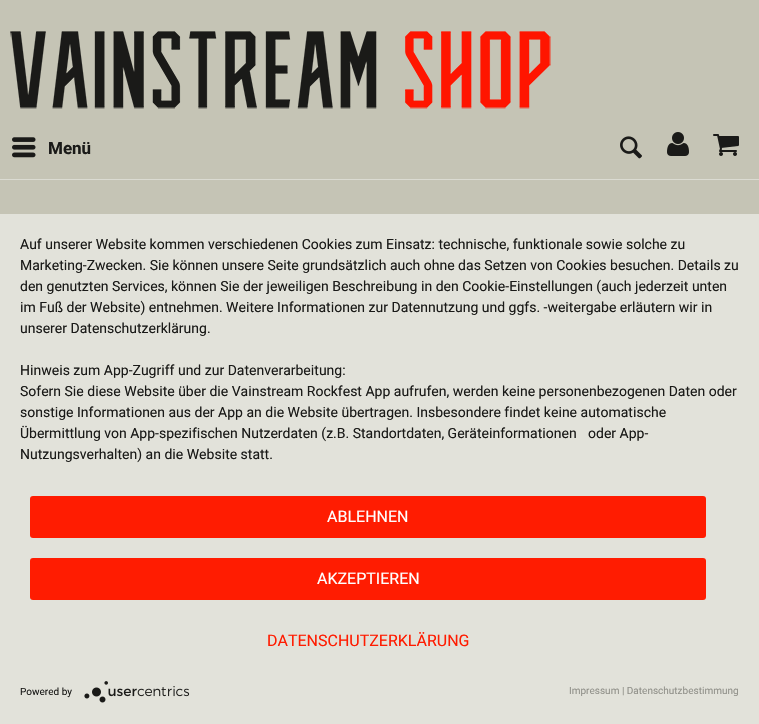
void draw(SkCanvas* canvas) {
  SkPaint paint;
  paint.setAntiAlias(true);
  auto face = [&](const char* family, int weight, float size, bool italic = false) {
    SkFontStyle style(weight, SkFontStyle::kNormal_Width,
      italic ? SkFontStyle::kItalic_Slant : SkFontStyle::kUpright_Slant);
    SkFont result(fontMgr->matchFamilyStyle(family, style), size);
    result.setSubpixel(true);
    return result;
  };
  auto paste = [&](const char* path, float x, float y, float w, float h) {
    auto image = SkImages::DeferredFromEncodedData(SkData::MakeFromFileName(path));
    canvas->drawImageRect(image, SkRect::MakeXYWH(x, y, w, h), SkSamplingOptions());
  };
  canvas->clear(0xffc5c4b5);
  paint.setColor(0xffdbdbd2);
  canvas->drawRect(SkRect::MakeXYWH(0, 179, 759, 1), paint);
  paste("img/1.png", 10, 31, 541, 78);
  paste("img/2.png", 12, 137, 24, 21);
  paste("img/3.png", 620, 136, 22, 23);
  paste("img/4.png", 667, 132, 22, 24);
  paste("img/5.png", 713, 134, 26, 22);
  paint.setColor(0xffe2e2da);
  canvas->drawRect(SkRect::MakeXYWH(0, 214, 759, 510), paint);
  paint.setColor(0xffff1c01);
  canvas->drawRoundRect(SkRect::MakeXYWH(30, 496, 676, 42), 3, 3, paint);
  canvas->drawRoundRect(SkRect::MakeXYWH(30, 558, 676, 42), 3, 3, paint);
  paste("img/6.png", 84, 681, 106, 22);
  auto f0 = face("Heebo", 700, 17);
  paint.setColor(0xff1a1a18);
  canvas->drawString("Menü", 48, 154, f0, paint);
  auto f1 = face("Heebo", 400, 14);
  {
    const struct { const char* s; float x, y; } items[] = {
      {"Auf unserer Website kommen verschiedenen Cookies zum Einsatz: technische, funktionale sowie solche zu", 20, 249},
      {"Marketing-Zwecken. Sie können unsere Seite grundsätzlich auch ohne das Setzen von Cookies besuchen. Details zu", 20, 270},
      {"den genutzten Services, können Sie der jeweiligen Beschreibung in den Cookie-Einstellungen (auch jederzeit unten", 20, 291},
      {"im Fuß der Website) entnehmen. Weitere Informationen zur Datennutzung und ggfs. -weitergabe erläutern wir in", 20, 312},
      {"unserer Datenschutzerklärung.", 20, 333},
      {"Hinweis zum App-Zugriff und zur Datenverarbeitung:", 20, 375},
      {"Sofern Sie diese Website über die Vainstream Rockfest App aufrufen, werden keine personenbezogenen Daten oder", 20, 396},
      {"sonstige Informationen aus der App an die Website übertragen. Insbesondere findet keine automatische", 20, 417},
      {"Übermittlung von App-spezifischen Nutzerdaten (z. B. Standortdaten, Geräteinformationen", 20, 438},
      {"oder App-", 588, 438},
      {"Nutzungsverhalten) an die Website statt.", 20, 459},
    };
    for (auto [s, x, y] : items) {
      canvas->drawString(s, x, y, f1, paint);
    }
  }
  auto f2 = face("Heebo", 400, 16);
  paint.setColor(0xffffffff);
  canvas->drawString("ABLEHNEN", 327, 522, f2, paint);
  canvas->drawString("AKZEPTIEREN", 317, 584, f2, paint);
  paint.setColor(0xffff1c01);
  canvas->drawString("DATENSCHUTZERKLÄRUNG", 267, 646, f2, paint);
  auto f3 = face("Heebo", 400, 10);
  paint.setColor(0xff1a1a18);
  canvas->drawString("Powered by", 20, 695, f3, paint);
  paint.setColor(0xff91918a);
  canvas->drawString("Impressum | Datenschutzbestimmung", 569, 694, f3, paint);
}
